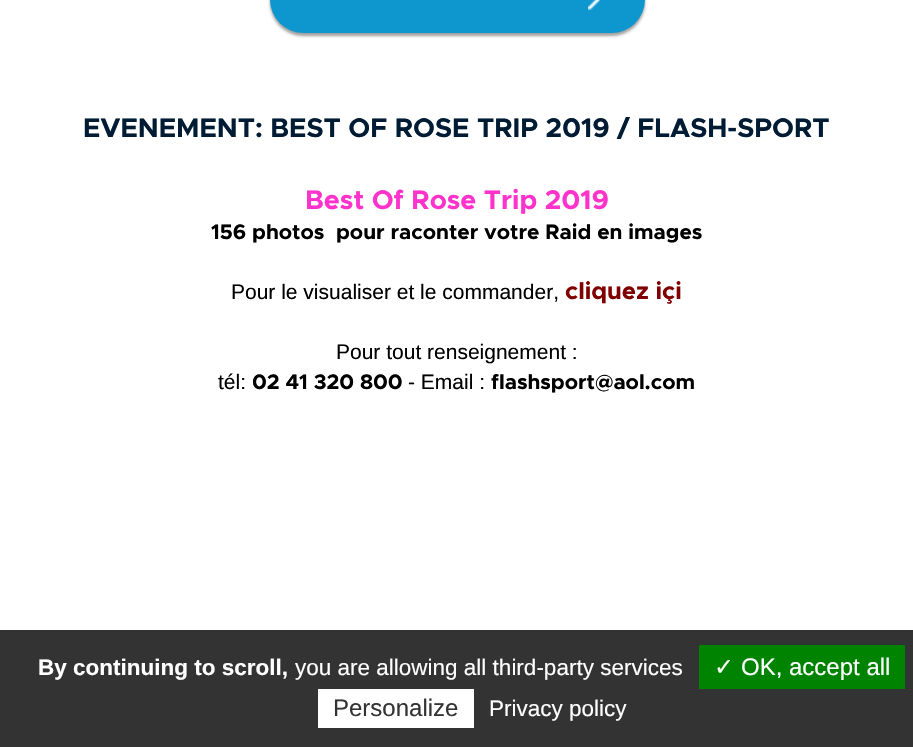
void draw(SkCanvas* canvas) {
  SkPaint paint;
  paint.setAntiAlias(true);
  auto face = [&](const char* family, int weight, float size, bool italic = false) {
    SkFontStyle style(weight, SkFontStyle::kNormal_Width,
      italic ? SkFontStyle::kItalic_Slant : SkFontStyle::kUpright_Slant);
    SkFont result(fontMgr->matchFamilyStyle(family, style), size);
    result.setSubpixel(true);
    return result;
  };
  auto paste = [&](const char* path, float x, float y, float w, float h) {
    auto image = SkImages::DeferredFromEncodedData(SkData::MakeFromFileName(path));
    canvas->drawImageRect(image, SkRect::MakeXYWH(x, y, w, h), SkSamplingOptions());
  };
  canvas->clear(0xffffffff);
  paint.setColor(0xffa0a0a0);
  paint.setMaskFilter(SkMaskFilter::MakeBlur(kNormal_SkBlurStyle, 1.5f));
  canvas->drawRoundRect(SkRect::MakeXYWH(270, -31, 375, 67), 33.5f, 33.5f, paint);
  paint.setMaskFilter(nullptr);
  paint.setColor(0xff0e97cf);
  canvas->drawRoundRect(SkRect::MakeXYWH(270, -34, 375, 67), 33.5f, 33.5f, paint);
  paste("img/1.png", 588, 0, 12, 10);
  {
    const struct { float x, y, w, h; SkColor color; } items[] = {
      {0, 630, 913, 117, 0xff333333},
      {699, 645, 206, 44, 0xff008300},
      {318, 689, 156, 39, 0xffffffff},
    };
    for (auto [x, y, w, h, color] : items) {
      paint.setColor(color);
      canvas->drawRect(SkRect::MakeXYWH(x, y, w, h), paint);
    }
  }
  auto f0 = face("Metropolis", 700, 27);
  paint.setColor(0xff001c34);
  canvas->drawString("EVENEMENT: BEST OF ROSE TRIP 2019 / FLASH-SPORT", 83, 137, f0, paint);
  paint.setColor(0xffff33cc);
  canvas->drawString("Best Of Rose Trip 2019", 305, 209, f0, paint);
  auto f1 = face("Metropolis", 700, 21);
  paint.setColor(0xff000000);
  canvas->drawString("156 photos  pour raconter votre Raid en images", 211, 239, f1, paint);
  auto f2 = face("Liberation Sans", 400, 21);
  canvas->drawString("Pour le visualiser et le commander,", 231, 299, f2, paint);
  auto f3 = face("Metropolis", 700, 24);
  paint.setColor(0xff800000);
  canvas->drawString("cliquez içi", 565, 299, f3, paint);
  paint.setColor(0xff000000);
  canvas->drawString("Pour tout renseignement :", 336, 359, f2, paint);
  canvas->drawString("tél:", 218, 389, f2, paint);
  canvas->drawString("02 41 320 800", 252, 389, f1, paint);
  canvas->drawString("- Email :", 408, 389, f2, paint);
  canvas->drawString("flashsport@aol.com", 491, 389, f1, paint);
  auto f4 = face("Liberation Sans", 700, 22.5f);
  paint.setColor(0xffffffff);
  canvas->drawString("By continuing to scroll,", 38, 675, f4, paint);
  auto f5 = face("Liberation Sans", 400, 22.5f);
  canvas->drawString("you are allowing all third-party services", 295, 675, f5, paint);
  auto f6 = face("DejaVu Sans", 400, 24);
  canvas->drawString("✓", 714, 675, f6, paint);
  auto f7 = face("Liberation Sans", 400, 24);
  canvas->drawString("OK, accept all", 741, 675, f7, paint);
  paint.setColor(0xff333333);
  canvas->drawString("Personalize", 333, 716, f7, paint);
  paint.setColor(0xffffffff);
  canvas->drawString("Privacy policy", 489, 716, f5, paint);
}
